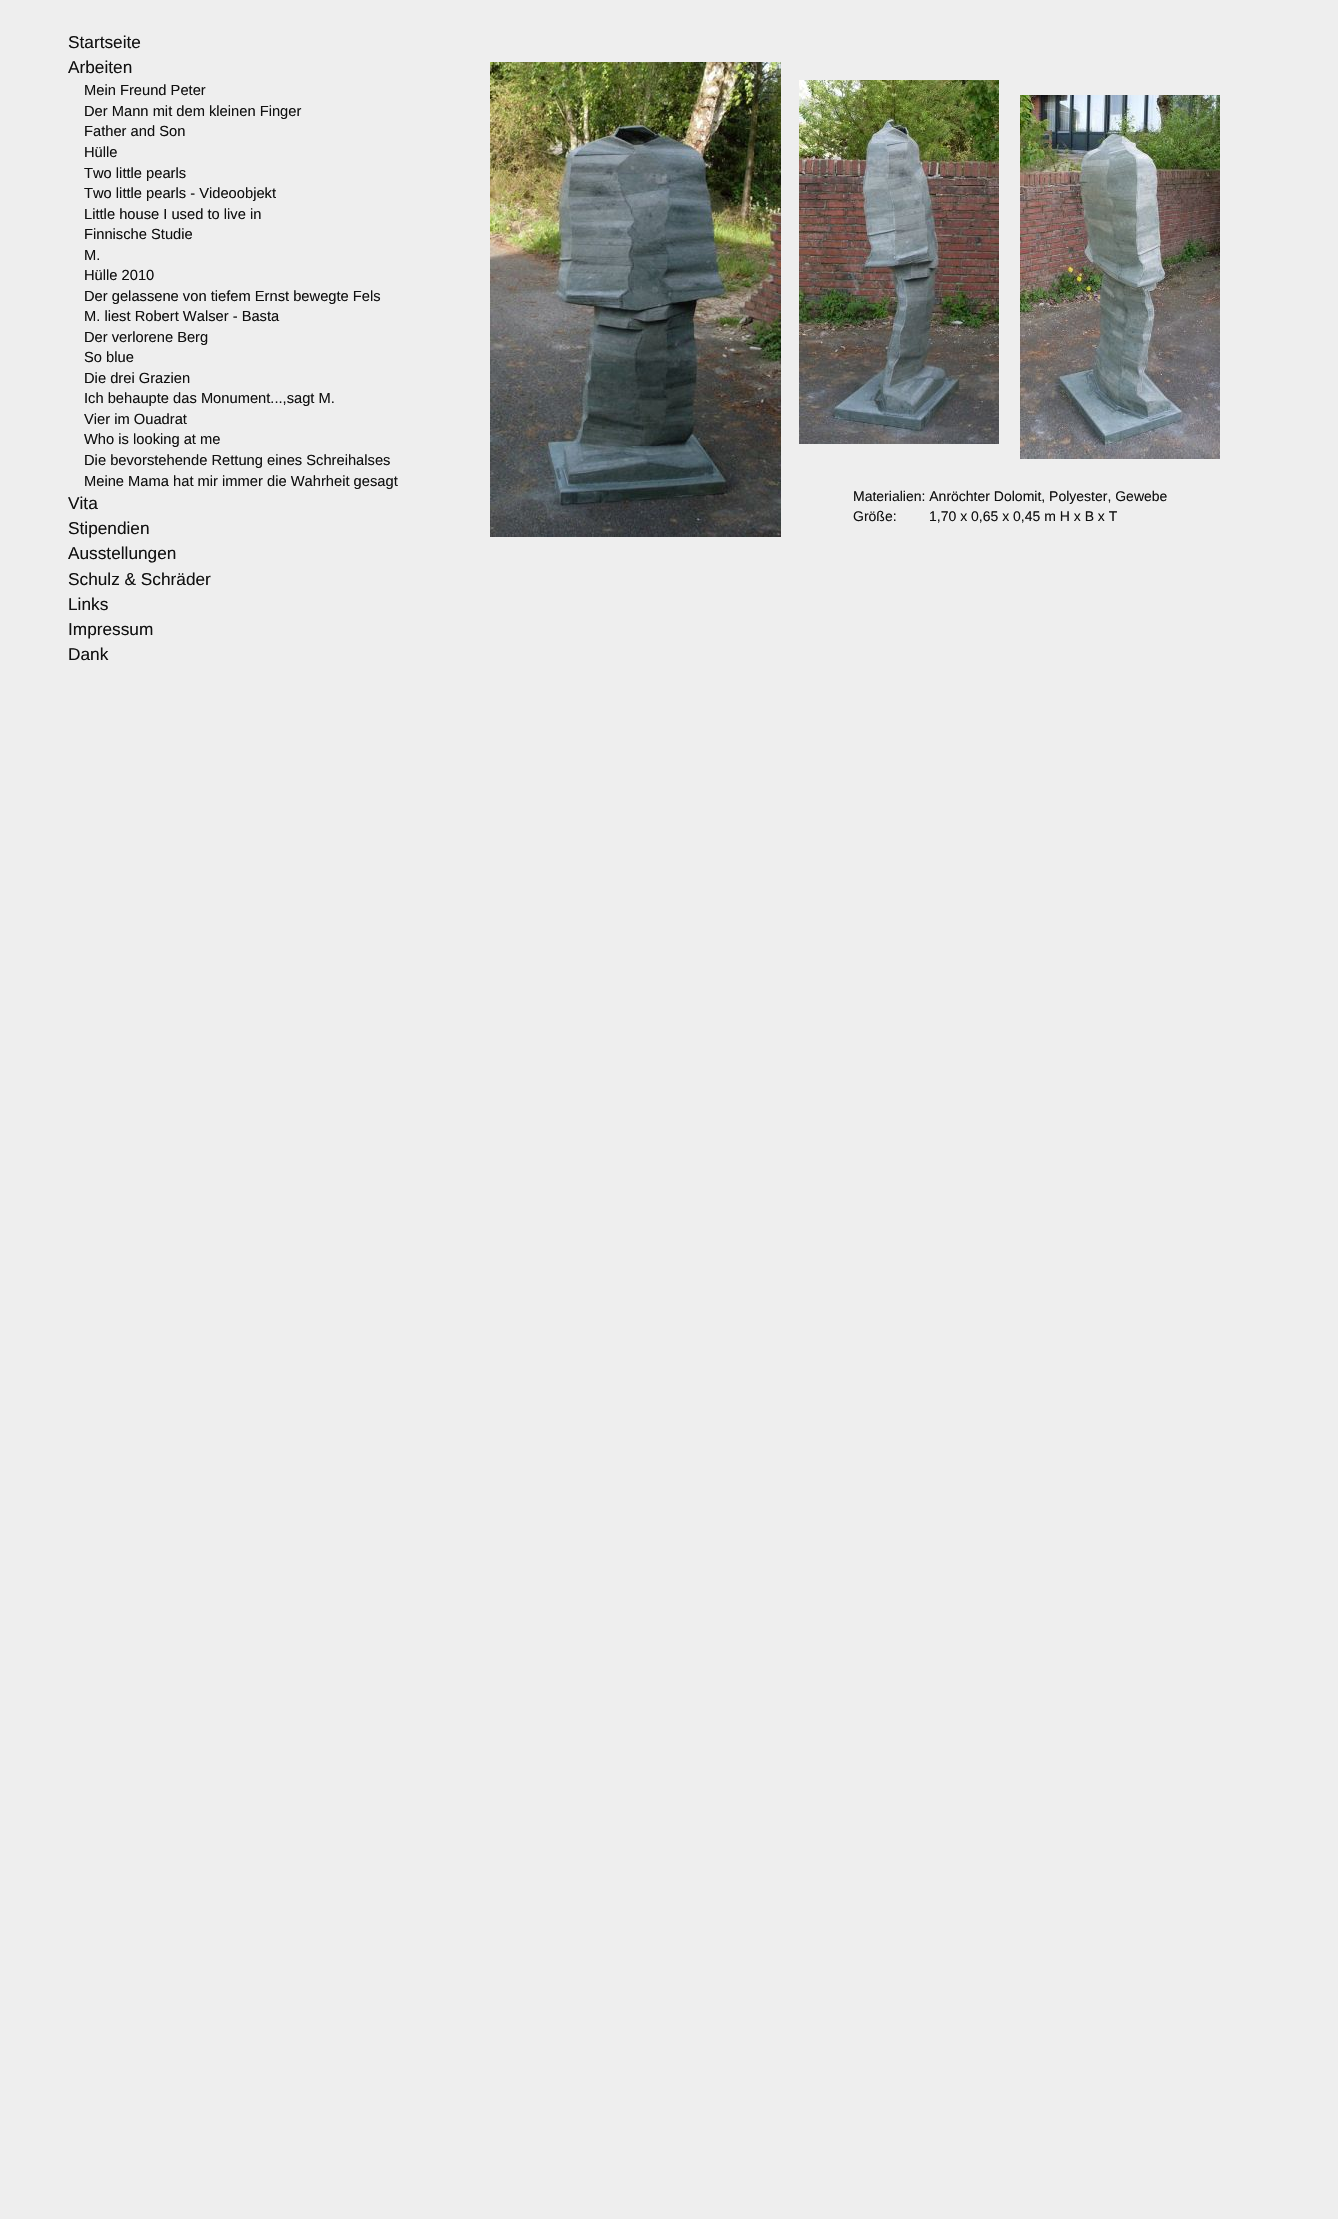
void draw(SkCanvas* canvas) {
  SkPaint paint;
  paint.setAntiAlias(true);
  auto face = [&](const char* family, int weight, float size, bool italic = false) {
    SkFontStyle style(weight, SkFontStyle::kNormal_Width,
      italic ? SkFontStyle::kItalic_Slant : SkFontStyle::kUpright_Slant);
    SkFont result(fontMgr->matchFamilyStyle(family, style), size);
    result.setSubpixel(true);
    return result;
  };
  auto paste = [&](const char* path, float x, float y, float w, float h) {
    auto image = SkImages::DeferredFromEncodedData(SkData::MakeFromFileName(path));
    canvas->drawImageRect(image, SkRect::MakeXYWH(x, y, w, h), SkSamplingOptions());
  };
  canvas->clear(0xffeeeeee);
  paste("img/1.png", 490, 62, 291, 475);
  paste("img/2.png", 799, 80, 200, 364);
  paste("img/3.png", 1020, 95, 200, 364);
  auto f0 = face("Liberation Sans", 400, 17.25f);
  paint.setColor(0xff111111);
  canvas->drawString("Startseite", 68, 48, f0, paint);
  canvas->drawString("Arbeiten", 68, 73, f0, paint);
  auto f1 = face("Liberation Sans", 400, 14.7f);
  {
    const struct { const char* s; float x, y; } items[] = {
      {"Mein Freund Peter", 84, 95},
      {"Der Mann mit dem kleinen Finger", 84, 116},
      {"Father and Son", 84, 136},
      {"Hülle", 84, 157},
      {"Two little pearls", 84, 178},
      {"Two little pearls - Videoobjekt", 84, 198},
      {"Little house I used to live in", 84, 219},
      {"Finnische Studie", 84, 239},
      {"M.", 84, 260},
      {"Hülle 2010", 84, 280},
      {"Der gelassene von tiefem Ernst bewegte Fels", 84, 301},
      {"M. liest Robert Walser - Basta", 84, 321},
      {"Der verlorene Berg", 84, 342},
      {"So blue", 84, 362},
      {"Die drei Grazien", 84, 383},
      {"Ich behaupte das Monument...,sagt M.", 84, 403},
      {"Vier im Ouadrat", 84, 424},
      {"Who is looking at me", 84, 444},
      {"Die bevorstehende Rettung eines Schreihalses", 84, 465},
      {"Meine Mama hat mir immer die Wahrheit gesagt", 84, 486},
    };
    for (auto [s, x, y] : items) {
      canvas->drawString(s, x, y, f1, paint);
    }
  }
  {
    const struct { const char* s; float x, y; } items[] = {
      {"Vita", 68, 509},
      {"Stipendien", 68, 534},
      {"Ausstellungen", 68, 559},
      {"Schulz & Schräder", 68, 585},
      {"Links", 68, 610},
      {"Impressum", 68, 635},
      {"Dank", 68, 660},
    };
    for (auto [s, x, y] : items) {
      canvas->drawString(s, x, y, f0, paint);
    }
  }
  auto f2 = face("Liberation Sans", 400, 14);
  {
    const struct { const char* s; float x, y; } items[] = {
      {"Materialien: Anröchter Dolomit, Polyester, Gewebe", 853, 501},
      {"Größe:", 853, 521},
      {"1,70 x 0,65 x 0,45 m H x B x T", 929, 521},
    };
    for (auto [s, x, y] : items) {
      canvas->drawString(s, x, y, f2, paint);
    }
  }
}
